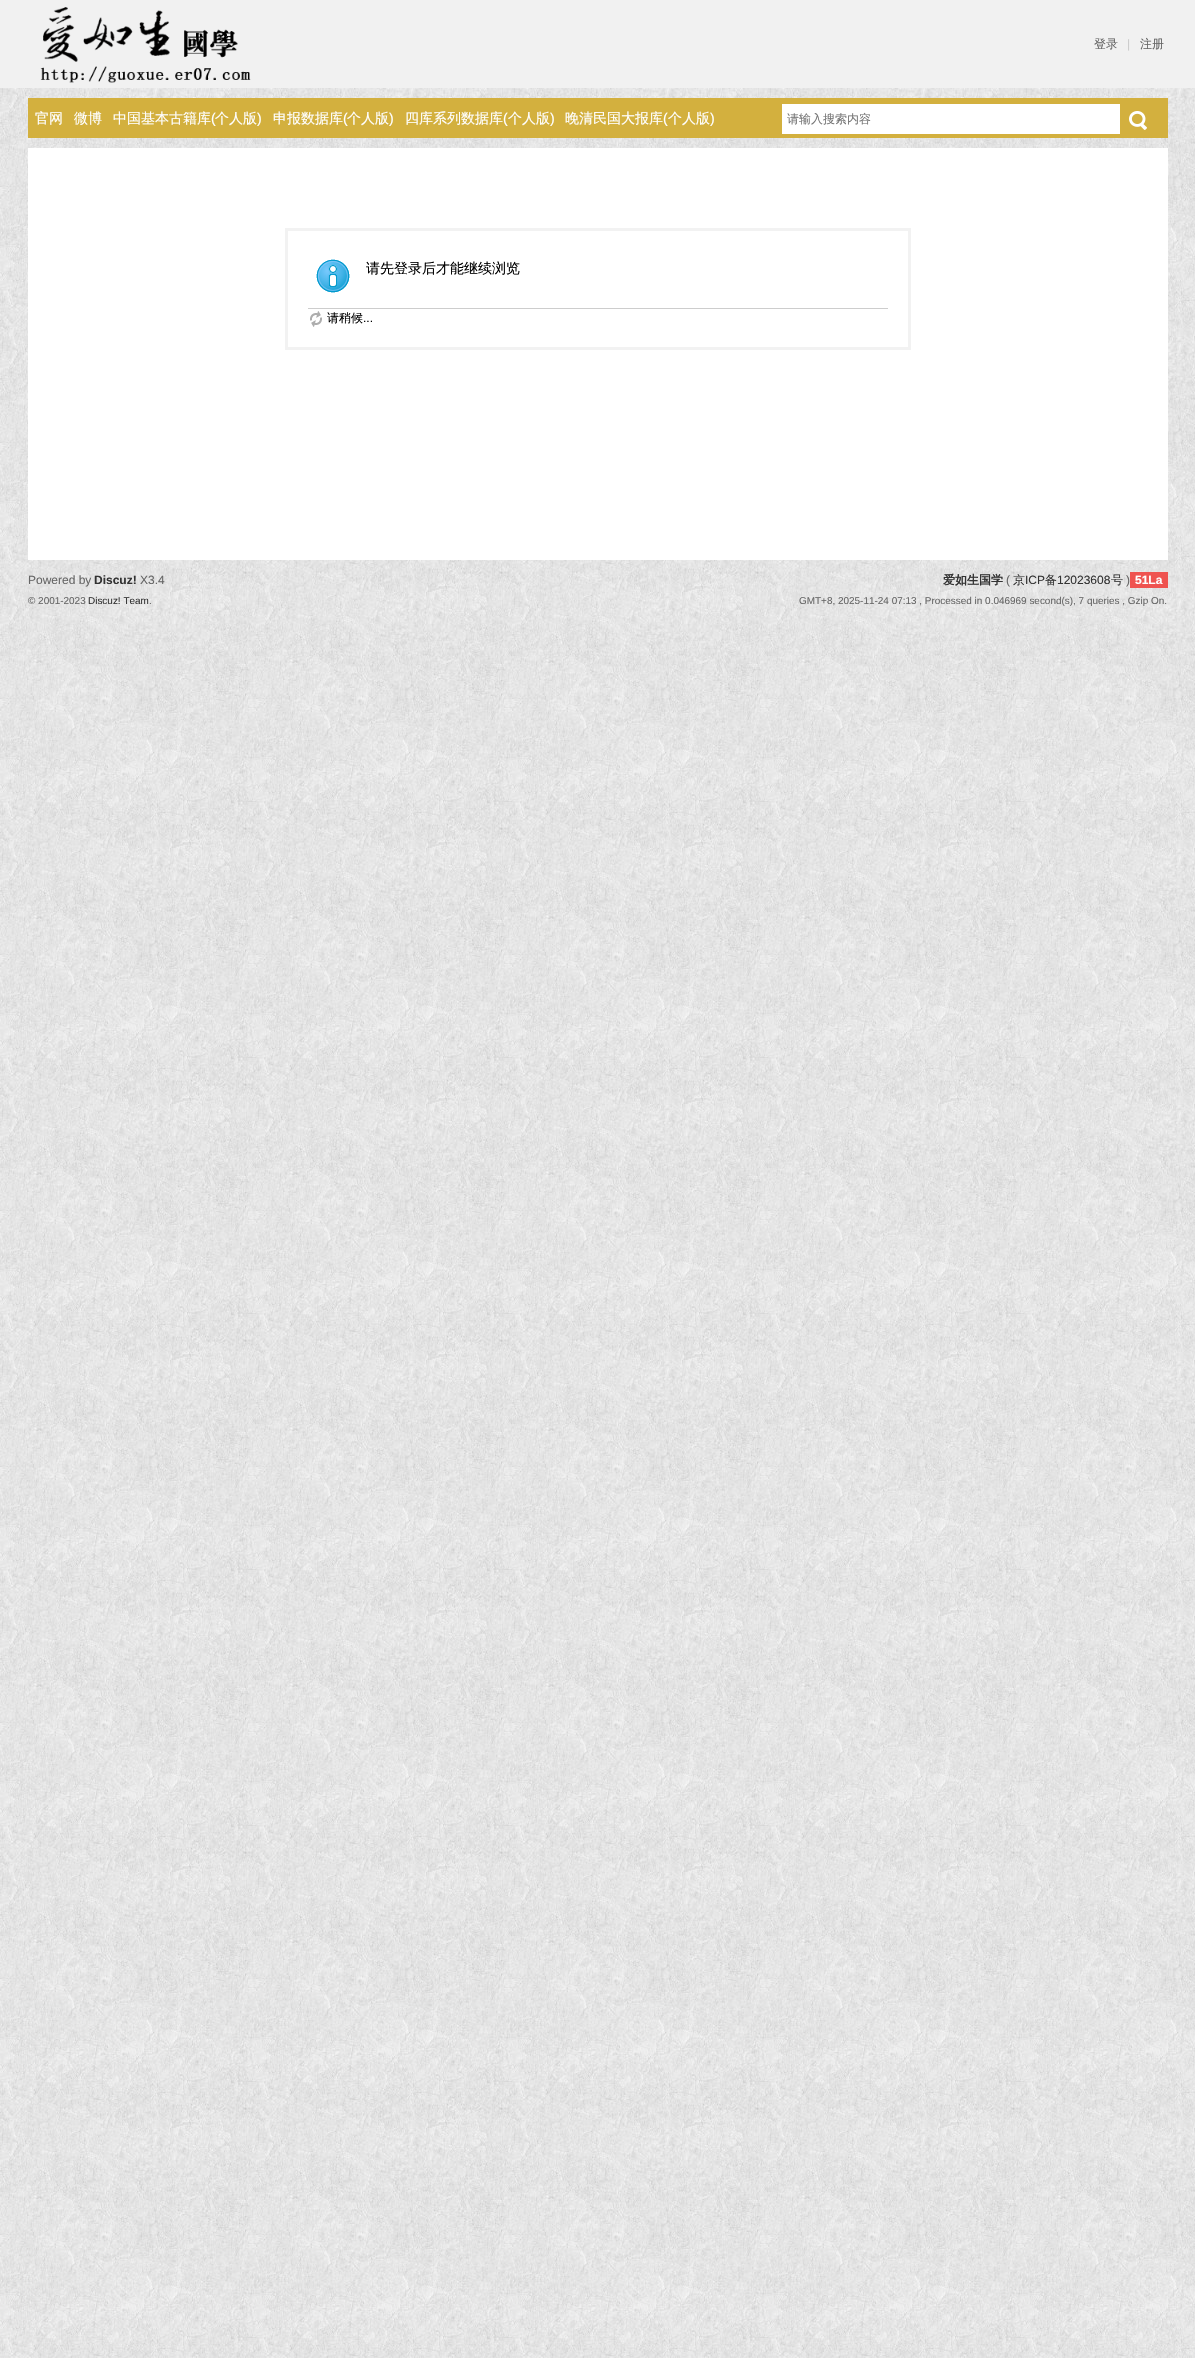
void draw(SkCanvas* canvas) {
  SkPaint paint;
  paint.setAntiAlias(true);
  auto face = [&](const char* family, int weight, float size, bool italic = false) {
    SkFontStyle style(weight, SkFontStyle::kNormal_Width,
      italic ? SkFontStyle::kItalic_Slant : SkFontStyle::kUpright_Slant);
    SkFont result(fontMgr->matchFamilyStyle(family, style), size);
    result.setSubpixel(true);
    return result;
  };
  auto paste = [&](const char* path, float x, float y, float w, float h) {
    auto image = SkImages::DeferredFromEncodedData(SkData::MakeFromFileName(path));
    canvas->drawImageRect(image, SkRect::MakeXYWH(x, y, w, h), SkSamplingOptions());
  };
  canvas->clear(0xffffffff);
  paste("img/1.png", 0, 88, 1195, 2270);
  paint.setColor(0xfff1f1f1);
  canvas->drawRect(SkRect::MakeXYWH(0, 0, 1195, 88), paint);
  paste("img/2.png", 40, 7, 211, 76);
  paint.setColor(0xffd3b03e);
  canvas->drawRect(SkRect::MakeXYWH(28, 98, 1140, 40), paint);
  paint.setColor(0xffffffff);
  canvas->drawRect(SkRect::MakeXYWH(782, 104, 338, 30), paint);
  paste("img/3.png", 1129, 111, 18, 19);
  canvas->drawRect(SkRect::MakeXYWH(28, 148, 1140, 412), paint);
  paint.setStroke(true);
  paint.setStrokeWidth(3);
  paint.setColor(0xfff2f2f2);
  canvas->drawRect(SkRect::MakeXYWH(286.5f, 229.5f, 623, 119), paint);
  paste("img/4.png", 316, 259, 34, 34);
  paint.setStroke(false);
  paint.setColor(0xffcdcdcd);
  canvas->drawRect(SkRect::MakeXYWH(308, 308, 580, 1), paint);
  paste("img/5.png", 310, 311, 12, 16);
  paint.setColor(0xffef5350);
  canvas->drawRect(SkRect::MakeXYWH(1130, 572, 38, 16), paint);
  auto f0 = face("WenQuanYi Zen Hei", 500, 12);
  paint.setColor(0xff666666);
  canvas->drawString("登录", 1094, 48, f0, paint);
  auto f1 = face("Liberation Sans", 400, 12);
  paint.setColor(0xffcccccc);
  canvas->drawString("|", 1127, 48, f1, paint);
  paint.setColor(0xff666666);
  canvas->drawString("注册", 1140, 48, f0, paint);
  auto f2 = face("WenQuanYi Zen Hei", 500, 14);
  paint.setColor(0xffffffff);
  {
    const struct { const char* s; float x, y; } items[] = {
      {"官网", 35, 123},
      {"微博", 74, 123},
      {"中国基本古籍库", 113, 123},
    };
    for (auto [s, x, y] : items) {
      canvas->drawString(s, x, y, f2, paint);
    }
  }
  auto f3 = face("Liberation Sans", 400, 14);
  canvas->drawString("(", 211, 123, f3, paint);
  canvas->drawString("个人版", 215, 123, f2, paint);
  canvas->drawString(")", 257, 123, f3, paint);
  canvas->drawString("申报数据库", 273, 123, f2, paint);
  canvas->drawString("(", 343, 123, f3, paint);
  canvas->drawString("个人版", 347, 123, f2, paint);
  canvas->drawString(")", 389, 123, f3, paint);
  canvas->drawString("四库系列数据库", 405, 123, f2, paint);
  canvas->drawString("(", 503, 123, f3, paint);
  canvas->drawString("个人版", 508, 123, f2, paint);
  canvas->drawString(")", 550, 123, f3, paint);
  canvas->drawString("晚清民国大报库", 565, 123, f2, paint);
  canvas->drawString("(", 663, 123, f3, paint);
  canvas->drawString("个人版", 668, 123, f2, paint);
  canvas->drawString(")", 710, 123, f3, paint);
  paint.setColor(0xff757575);
  canvas->drawString("请输入搜索内容", 787, 123, f0, paint);
  paint.setColor(0xff000000);
  canvas->drawString("请先登录后才能继续浏览", 366, 273, f2, paint);
  canvas->drawString("请稍候", 327, 322, f0, paint);
  canvas->drawString("...", 363, 322, f1, paint);
  paint.setColor(0xff666666);
  canvas->drawString("Powered by", 28, 584, f1, paint);
  auto f4 = face("Liberation Sans", 700, 12);
  paint.setColor(0xff333333);
  canvas->drawString("Discuz!", 94, 584, f4, paint);
  paint.setColor(0xff666666);
  canvas->drawString("X3.4", 140, 584, f1, paint);
  auto f5 = face("Liberation Sans", 400, 9.95f);
  canvas->drawString("© 2001-2023", 28, 604, f5, paint);
  paint.setColor(0xff333333);
  canvas->drawString("Discuz! Team", 88, 604, f5, paint);
  paint.setColor(0xff666666);
  canvas->drawString(".", 149, 604, f5, paint);
  auto f6 = face("WenQuanYi Zen Hei", 700, 12);
  paint.setColor(0xff333333);
  canvas->drawString("爱如生国学", 943, 584, f6, paint);
  paint.setColor(0xff666666);
  canvas->drawString("(", 1006, 584, f1, paint);
  paint.setColor(0xff333333);
  canvas->drawString("京", 1013, 584, f0, paint);
  canvas->drawString("ICP", 1025, 584, f1, paint);
  canvas->drawString("备", 1045, 584, f0, paint);
  canvas->drawString("12023608", 1057, 584, f1, paint);
  canvas->drawString("号", 1111, 584, f0, paint);
  paint.setColor(0xff666666);
  canvas->drawString(")", 1126, 584, f1, paint);
  paint.setColor(0xffffffff);
  canvas->drawString("51La", 1135, 584, f4, paint);
  paint.setColor(0xff666666);
  canvas->drawString("GMT+8, 2025-11-24 07:13 , Processed in 0.046969 second(s), 7 queries , Gzip On.", 799, 604, f5, paint);
}
